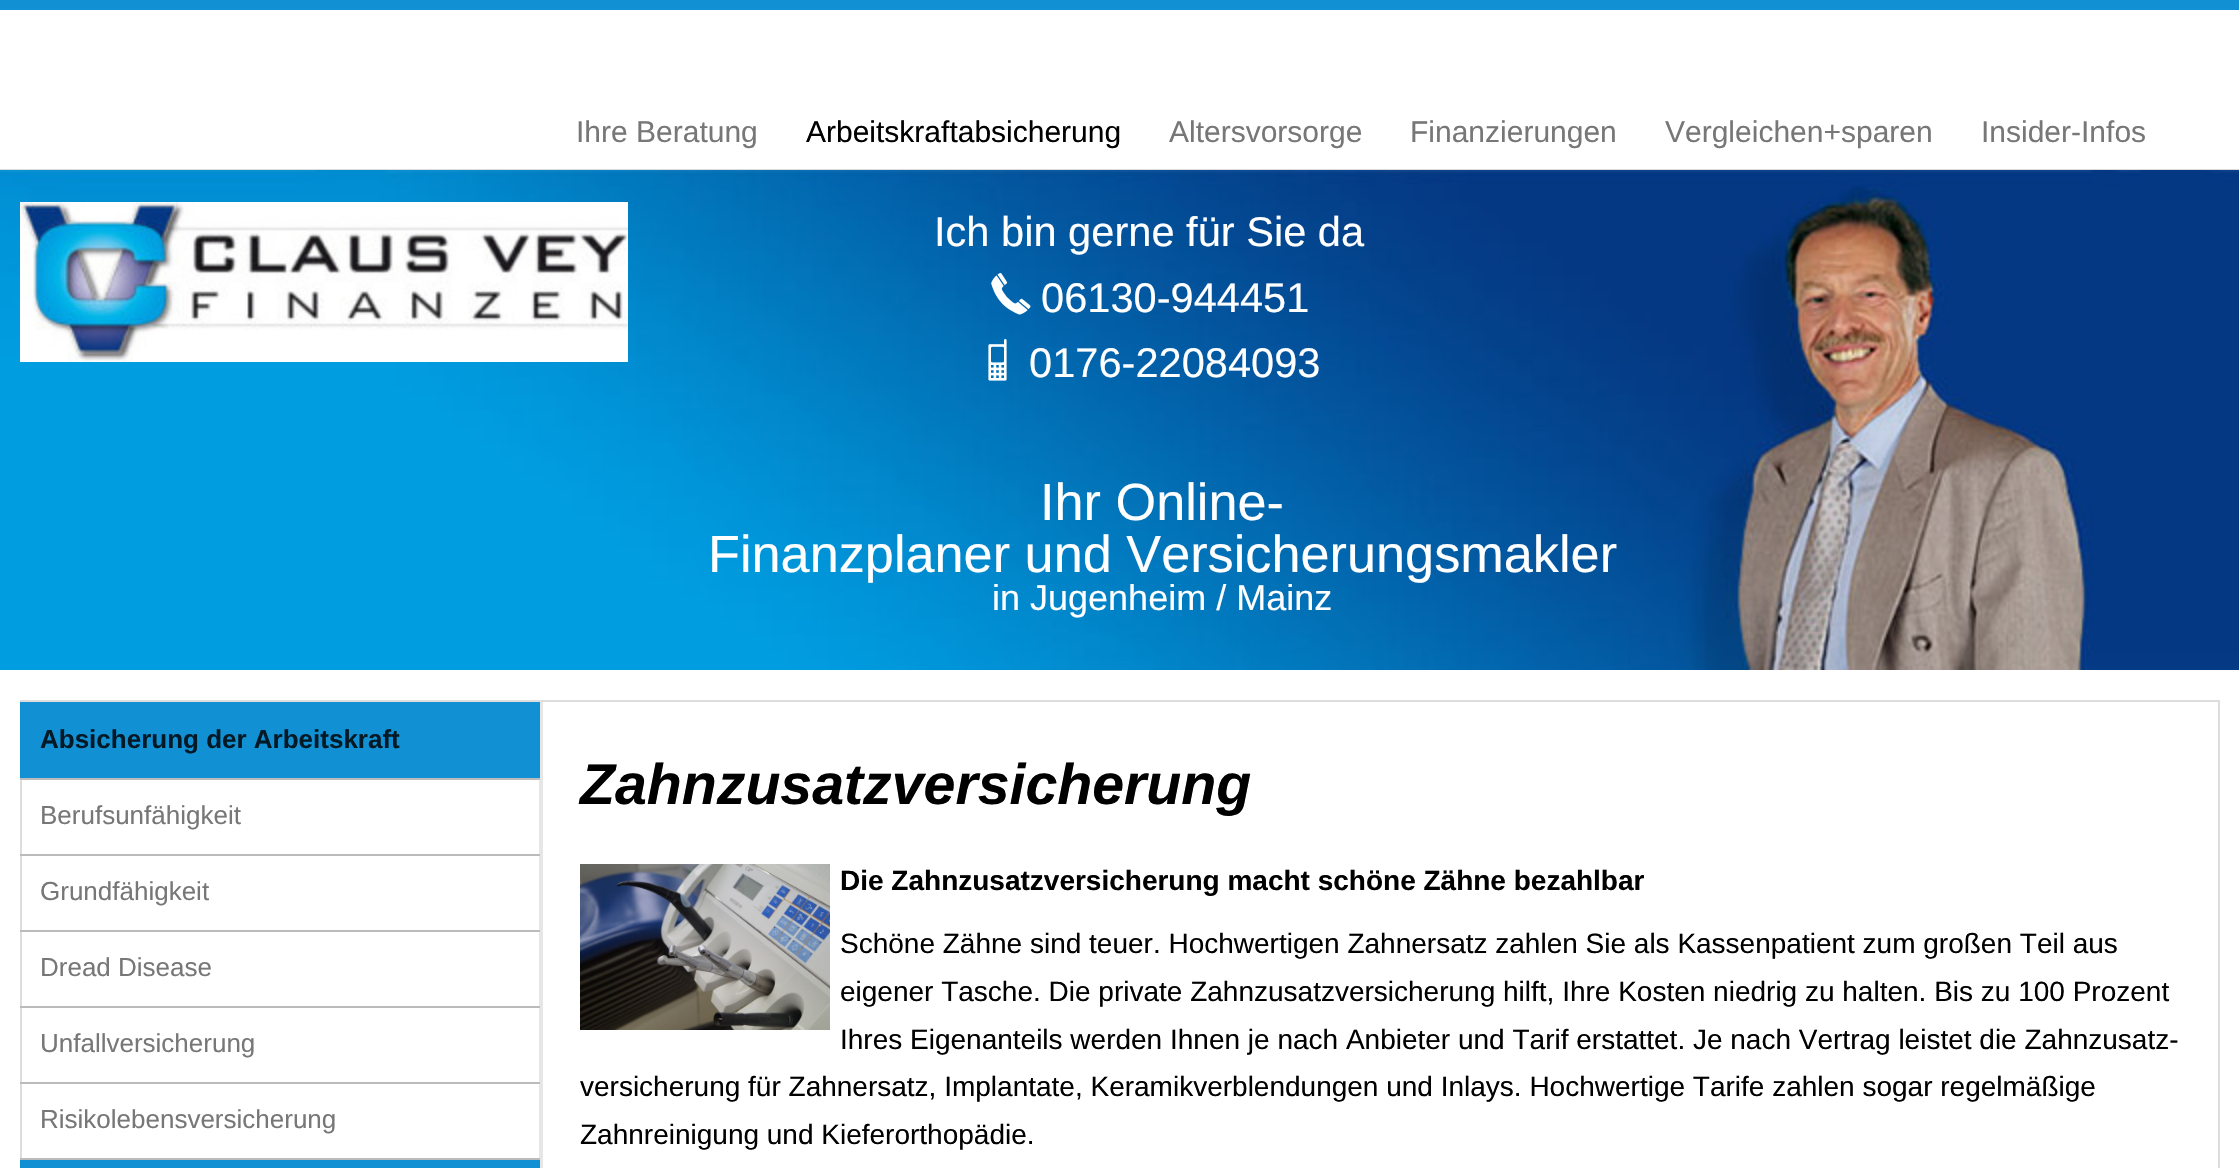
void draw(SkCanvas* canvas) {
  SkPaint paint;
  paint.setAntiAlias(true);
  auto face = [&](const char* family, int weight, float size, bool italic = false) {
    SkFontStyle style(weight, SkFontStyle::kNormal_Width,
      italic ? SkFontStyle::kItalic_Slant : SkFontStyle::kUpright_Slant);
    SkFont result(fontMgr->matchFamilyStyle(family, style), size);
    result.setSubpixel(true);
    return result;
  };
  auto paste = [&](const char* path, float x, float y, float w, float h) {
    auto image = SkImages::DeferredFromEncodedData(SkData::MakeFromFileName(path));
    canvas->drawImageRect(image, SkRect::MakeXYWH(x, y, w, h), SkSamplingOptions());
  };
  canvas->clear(0xffffffff);
  paste("img/1.png", 0, 169, 2239, 1);
  paste("img/2.png", 0, 170, 2239, 500);
  paint.setColor(0xff1190d4);
  canvas->drawRect(SkRect::MakeXYWH(0, 0, 2239, 10), paint);
  paint.setColor(0xffe6e6e6);
  canvas->drawRect(SkRect::MakeXYWH(539, 700, 4, 468), paint);
  paint.setStroke(true);
  paint.setStrokeWidth(2);
  paint.setColor(0xffdddddd);
  canvas->drawRect(SkRect::MakeXYWH(21, 701, 2198, 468), paint);
  paint.setStroke(false);
  {
    const struct { float x, y, w, h; SkColor color; } items[] = {
      {20, 778, 520, 2, 0xffbbbbbb},
      {20, 702, 520, 76, 0xff1190d4},
      {20, 854, 520, 2, 0xffbbbbbb},
      {20, 930, 520, 2, 0xffbbbbbb},
      {20, 1006, 520, 2, 0xffbbbbbb},
      {20, 1082, 520, 2, 0xffbbbbbb},
      {20, 1158, 520, 2, 0xffbbbbbb},
      {20, 1160, 520, 8, 0xff1190d4},
    };
    for (auto [x, y, w, h, color] : items) {
      paint.setColor(color);
      canvas->drawRect(SkRect::MakeXYWH(x, y, w, h), paint);
    }
  }
  paste("img/3.png", 20, 202, 608, 160);
  paste("img/4.png", 991, 273, 40, 42);
  paste("img/5.png", 988, 339, 19, 42);
  paste("img/6.png", 580, 864, 250, 166);
  auto f0 = face("Liberation Sans", 400, 30);
  paint.setColor(0xff000000);
  canvas->drawString("Arbeitskraftabsicherung", 806, 142, f0, paint);
  auto f1 = face("Liberation Sans", 700, 26);
  paint.setColor(0xff031a26);
  canvas->drawString("Absicherung der Arbeitskraft", 40, 748, f1, paint);
  auto f2 = face("Liberation Sans", 400, 26);
  paint.setColor(0xff777777);
  {
    const struct { const char* s; float x, y; } items[] = {
      {"Berufsunfähigkeit", 40, 824},
      {"Grundfähigkeit", 40, 900},
      {"Dread Disease", 40, 976},
      {"Unfallversicherung", 40, 1052},
      {"Risikolebensversicherung", 40, 1128},
    };
    for (auto [s, x, y] : items) {
      canvas->drawString(s, x, y, f2, paint);
    }
  }
  {
    const struct { const char* s; float x, y; } items[] = {
      {"Ihre Beratung", 576, 142},
      {"Altersvorsorge", 1169, 142},
      {"Finanzierungen", 1410, 142},
      {"Vergleichen+sparen", 1665, 142},
      {"Insider-Infos", 1981, 142},
    };
    for (auto [s, x, y] : items) {
      canvas->drawString(s, x, y, f0, paint);
    }
  }
  auto f3 = face("Liberation Sans", 400, 41.6f);
  paint.setColor(0xffffffff);
  {
    const struct { const char* s; float x, y; } items[] = {
      {"Ich bin gerne für Sie da", 934, 246},
      {"06130-944451", 1041, 312},
      {"0176-22084093", 1029, 377},
    };
    for (auto [s, x, y] : items) {
      canvas->drawString(s, x, y, f3, paint);
    }
  }
  auto f4 = face("Liberation Sans", 400, 52.25f);
  canvas->drawString("Ihr Online-", 1040, 520, f4, paint);
  canvas->drawString("Finanzplaner und Versicherungsmakler", 708, 572, f4, paint);
  auto f5 = face("Liberation Sans", 400, 36);
  canvas->drawString("in Jugenheim / Mainz", 992, 610, f5, paint);
  auto f6 = face("Liberation Sans", 700, 57.25f, true);
  paint.setColor(0xff000000);
  canvas->drawString("Zahnzusatzversicherung", 580, 804, f6, paint);
  auto f7 = face("Liberation Sans", 700, 28);
  canvas->drawString("Die Zahnzusatzversicherung macht schöne Zähne bezahlbar", 840, 890, f7, paint);
  auto f8 = face("Liberation Sans", 400, 28);
  {
    const struct { const char* s; float x, y; } items[] = {
      {"Schöne Zähne sind teuer. Hochwertigen Zahnersatz zahlen Sie als Kassenpatient zum großen Teil aus", 840, 953},
      {"eigener Tasche. Die private Zahnzusatzversicherung hilft, Ihre Kosten niedrig zu halten. Bis zu 100 Prozent", 840, 1001},
      {"Ihres Eigenanteils werden Ihnen je nach Anbieter und Tarif erstattet. Je nach Vertrag leistet die Zahnzusatz-", 840, 1049},
      {"versicherung für Zahnersatz, Implantate, Keramikverblendungen und Inlays. Hochwertige Tarife zahlen sogar regelmäßige", 580, 1096},
      {"Zahnreinigung und Kieferorthopädie.", 580, 1144},
    };
    for (auto [s, x, y] : items) {
      canvas->drawString(s, x, y, f8, paint);
    }
  }
}
